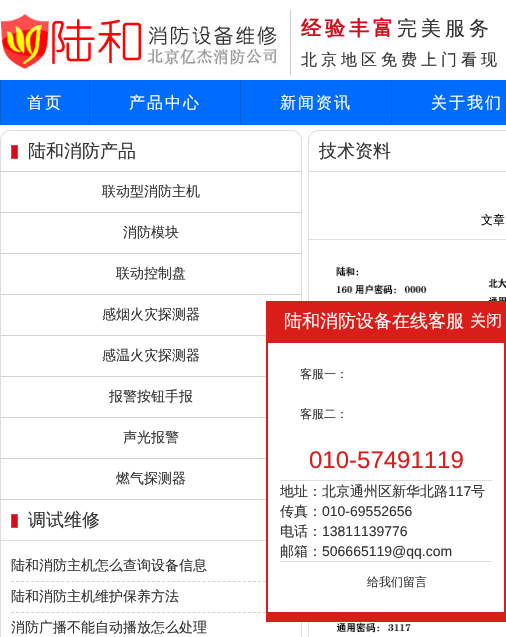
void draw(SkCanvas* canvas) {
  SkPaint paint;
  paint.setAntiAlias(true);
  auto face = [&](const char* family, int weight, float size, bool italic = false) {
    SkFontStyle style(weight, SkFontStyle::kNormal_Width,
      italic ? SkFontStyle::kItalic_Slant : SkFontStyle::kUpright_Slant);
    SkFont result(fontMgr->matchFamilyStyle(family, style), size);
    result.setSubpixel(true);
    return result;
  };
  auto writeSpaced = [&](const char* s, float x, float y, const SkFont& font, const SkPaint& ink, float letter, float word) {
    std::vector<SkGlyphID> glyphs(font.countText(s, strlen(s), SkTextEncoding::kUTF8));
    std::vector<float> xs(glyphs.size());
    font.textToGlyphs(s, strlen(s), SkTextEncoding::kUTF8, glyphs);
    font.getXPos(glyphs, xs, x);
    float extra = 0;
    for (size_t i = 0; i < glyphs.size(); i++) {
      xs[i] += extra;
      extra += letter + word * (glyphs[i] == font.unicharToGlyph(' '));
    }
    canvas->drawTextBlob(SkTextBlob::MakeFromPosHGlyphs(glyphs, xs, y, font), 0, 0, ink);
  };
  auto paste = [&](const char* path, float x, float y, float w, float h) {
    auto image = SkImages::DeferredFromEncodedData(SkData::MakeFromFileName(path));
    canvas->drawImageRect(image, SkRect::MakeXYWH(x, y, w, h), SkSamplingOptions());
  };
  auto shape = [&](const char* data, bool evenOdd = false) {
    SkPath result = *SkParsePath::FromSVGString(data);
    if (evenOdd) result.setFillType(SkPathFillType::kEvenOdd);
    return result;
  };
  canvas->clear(0xffffffff);
  paste("img/1.png", 0, 10, 280, 60);
  {
    const struct { float x, y, w, h; SkColor color; } items[] = {
      {290, 10, 1, 65, 0xffcccccc},
      {1, 80, 505, 45, 0xff006cff},
      {89, 80, 1, 45, 0xff035dd8},
      {0, 80, 1, 45, 0xff035dd8},
      {240, 80, 1, 45, 0xff035dd8},
      {391, 80, 1, 45, 0xff035dd8},
    };
    for (auto [x, y, w, h, color] : items) {
      paint.setColor(color);
      canvas->drawRect(SkRect::MakeXYWH(x, y, w, h), paint);
    }
  }
  paint.setColor(0xfff2f2f2);
  canvas->drawRoundRect(SkRect::MakeXYWH(0.5f, 130.5f, 301, 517), 9.5f, 9.5f, paint);
  paint.setStroke(true);
  paint.setStrokeWidth(1);
  paint.setColor(0xffdddddd);
  canvas->drawRoundRect(SkRect::MakeXYWH(0.5f, 130.5f, 301, 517), 9.5f, 9.5f, paint);
  paint.setStroke(false);
  paint.setColor(0xffffffff);
  canvas->drawPath(shape("M11 131H291C296.5 131 301 135.5 301 141V171H1V141C1 135.5 5.5 131 11 131Z"), paint);
  paint.setColor(0xffd60c1a);
  canvas->drawRect(SkRect::MakeXYWH(11.5f, 145.5f, 6, 13), paint);
  paint.setStroke(true);
  paint.setColor(0xffd4454f);
  canvas->drawRect(SkRect::MakeXYWH(11.5f, 145.5f, 6, 13), paint);
  paint.setStroke(false);
  {
    const struct { float x, y, w, h; SkColor color; } items[] = {
      {1, 172, 300, 327, 0xffffffff},
      {1, 171, 300, 1, 0xffd2d2d2},
      {1, 212, 300, 1, 0xffd2d2d2},
      {1, 253, 300, 1, 0xffd2d2d2},
      {1, 294, 300, 1, 0xffd2d2d2},
      {1, 335, 265, 1, 0xffd2d2d2},
      {1, 376, 265, 1, 0xffd2d2d2},
      {1, 417, 265, 1, 0xffd2d2d2},
      {1, 458, 265, 1, 0xffd2d2d2},
      {1, 499, 265, 1, 0xffd2d2d2},
      {1, 500, 300, 137, 0xffffffff},
    };
    for (auto [x, y, w, h, color] : items) {
      paint.setColor(color);
      canvas->drawRect(SkRect::MakeXYWH(x, y, w, h), paint);
    }
  }
  paint.setColor(0xffd60c1a);
  canvas->drawRect(SkRect::MakeXYWH(11.5f, 514.5f, 6, 13), paint);
  paint.setStroke(true);
  paint.setColor(0xffd4454f);
  canvas->drawRect(SkRect::MakeXYWH(11.5f, 514.5f, 6, 13), paint);
  paint.setStroke(false);
  paint.setColor(0xffdddddd);
  canvas->drawRect(SkRect::MakeXYWH(1, 540, 265, 1), paint);
  paint.setStroke(true);
  paint.setColor(0xffd2d2d2);
  paint.setPathEffect(SkDashPathEffect::Make({{3, 2.04f}}, 0));
  canvas->drawPath(shape("M11 581.5H291"), paint);
  paint.setPathEffect(nullptr);
  paint.setPathEffect(SkDashPathEffect::Make({{3, 2.04f}}, 0));
  canvas->drawPath(shape("M11 612.5H291"), paint);
  paint.setPathEffect(nullptr);
  paint.setColor(0xffdddddd);
  canvas->drawRoundRect(SkRect::MakeXYWH(308.5f, 130.5f, 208, 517), 9.5f, 9.5f, paint);
  paint.setStroke(false);
  canvas->drawRect(SkRect::MakeXYWH(309, 171, 197, 1), paint);
  canvas->drawRect(SkRect::MakeXYWH(309, 239, 197, 1), paint);
  paste("img/2.png", 335, 266, 171, 367);
  paint.setColor(0xffd91d19);
  canvas->drawRect(SkRect::MakeXYWH(266, 301, 240, 40), paint);
  paint.setColor(0xffffffff);
  canvas->drawRect(SkRect::MakeXYWH(267, 342, 238, 271), paint);
  paint.setStroke(true);
  paint.setStrokeWidth(2);
  paint.setColor(0xffd91d19);
  canvas->drawRect(SkRect::MakeXYWH(267, 342, 238, 271), paint);
  paint.setStroke(false);
  {
    const struct { float x, y, w, h; SkColor color; } items[] = {
      {280, 480, 212, 1, 0xffdddddd},
      {280, 561, 212, 1, 0xffdddddd},
      {266, 614, 240, 8, 0xffd91d19},
    };
    for (auto [x, y, w, h, color] : items) {
      paint.setColor(color);
      canvas->drawRect(SkRect::MakeXYWH(x, y, w, h), paint);
    }
  }
  auto f0 = face("WenQuanYi Zen Hei", 700, 20);
  paint.setColor(0xffd60c1a);
  writeSpaced("经验丰富", 301, 35, f0, paint, 4, 0);
  auto f1 = face("WenQuanYi Zen Hei", 500, 20);
  paint.setColor(0xff333333);
  writeSpaced("完美服务", 397, 35, f1, paint, 4, 0);
  auto f2 = face("WenQuanYi Zen Hei", 500, 16);
  writeSpaced("北京地区免费上门看现", 301, 65, f2, paint, 4, 0);
  paint.setColor(0xffffffff);
  {
    const struct { const char* s; float x, y; } items[] = {
      {"首页", 27, 108},
      {"产品中心", 129, 108},
      {"新闻资讯", 280, 108},
      {"关于我们", 431, 108},
    };
    for (auto [s, x, y] : items) {
      writeSpaced(s, x, y, f2, paint, 2, 0);
    }
  }
  auto f3 = face("WenQuanYi Zen Hei", 500, 18);
  paint.setColor(0xff333333);
  canvas->drawString("陆和消防产品", 28, 157, f3, paint);
  auto f4 = face("WenQuanYi Zen Hei", 500, 14);
  {
    const struct { const char* s; float x, y; } items[] = {
      {"联动型消防主机", 102, 196},
      {"消防模块", 123, 237},
      {"联动控制盘", 116, 278},
      {"感烟火灾探测器", 102, 319},
      {"感温火灾探测器", 102, 360},
      {"报警按钮手报", 109, 401},
      {"声光报警", 123, 442},
      {"燃气探测器", 116, 483},
    };
    for (auto [s, x, y] : items) {
      canvas->drawString(s, x, y, f4, paint);
    }
  }
  canvas->drawString("调试维修", 28, 526, f3, paint);
  {
    const struct { const char* s; float x, y; } items[] = {
      {"陆和消防主机怎么查询设备信息", 11, 570},
      {"陆和消防主机维护保养方法", 11, 601},
      {"消防广播不能自动播放怎么处理", 11, 632},
    };
    for (auto [s, x, y] : items) {
      canvas->drawString(s, x, y, f4, paint);
    }
  }
  canvas->drawString("技术资料", 319, 157, f3, paint);
  auto f5 = face("WenQuanYi Zen Hei", 500, 12);
  paint.setColor(0xff000000);
  canvas->drawString("文章", 481, 224, f5, paint);
  paint.setColor(0xffffffff);
  canvas->drawString("陆和消防设备在线客服", 284, 327, f3, paint);
  canvas->drawString("关闭", 470, 326, f2, paint);
  paint.setColor(0xff333333);
  canvas->drawString("客服一：", 300, 378, f5, paint);
  canvas->drawString("客服二：", 300, 418, f5, paint);
  auto f6 = face("Liberation Sans", 400, 24);
  paint.setColor(0xffd91d19);
  canvas->drawString("010-57491119", 309, 468, f6, paint);
  paint.setColor(0xff333333);
  canvas->drawString("地址：北京通州区新华北路", 280, 496, f4, paint);
  auto f7 = face("Liberation Sans", 400, 14);
  canvas->drawString("117", 448, 496, f7, paint);
  canvas->drawString("号", 471, 496, f4, paint);
  canvas->drawString("传真：", 280, 516, f4, paint);
  canvas->drawString("010-69552656", 322, 516, f7, paint);
  canvas->drawString("电话：", 280, 536, f4, paint);
  canvas->drawString("13811139776", 322, 536, f7, paint);
  canvas->drawString("邮箱：", 280, 556, f4, paint);
  canvas->drawString("506665119@qq.com", 322, 556, f7, paint);
  canvas->drawString("给我们留言", 367, 586, f5, paint);
}
